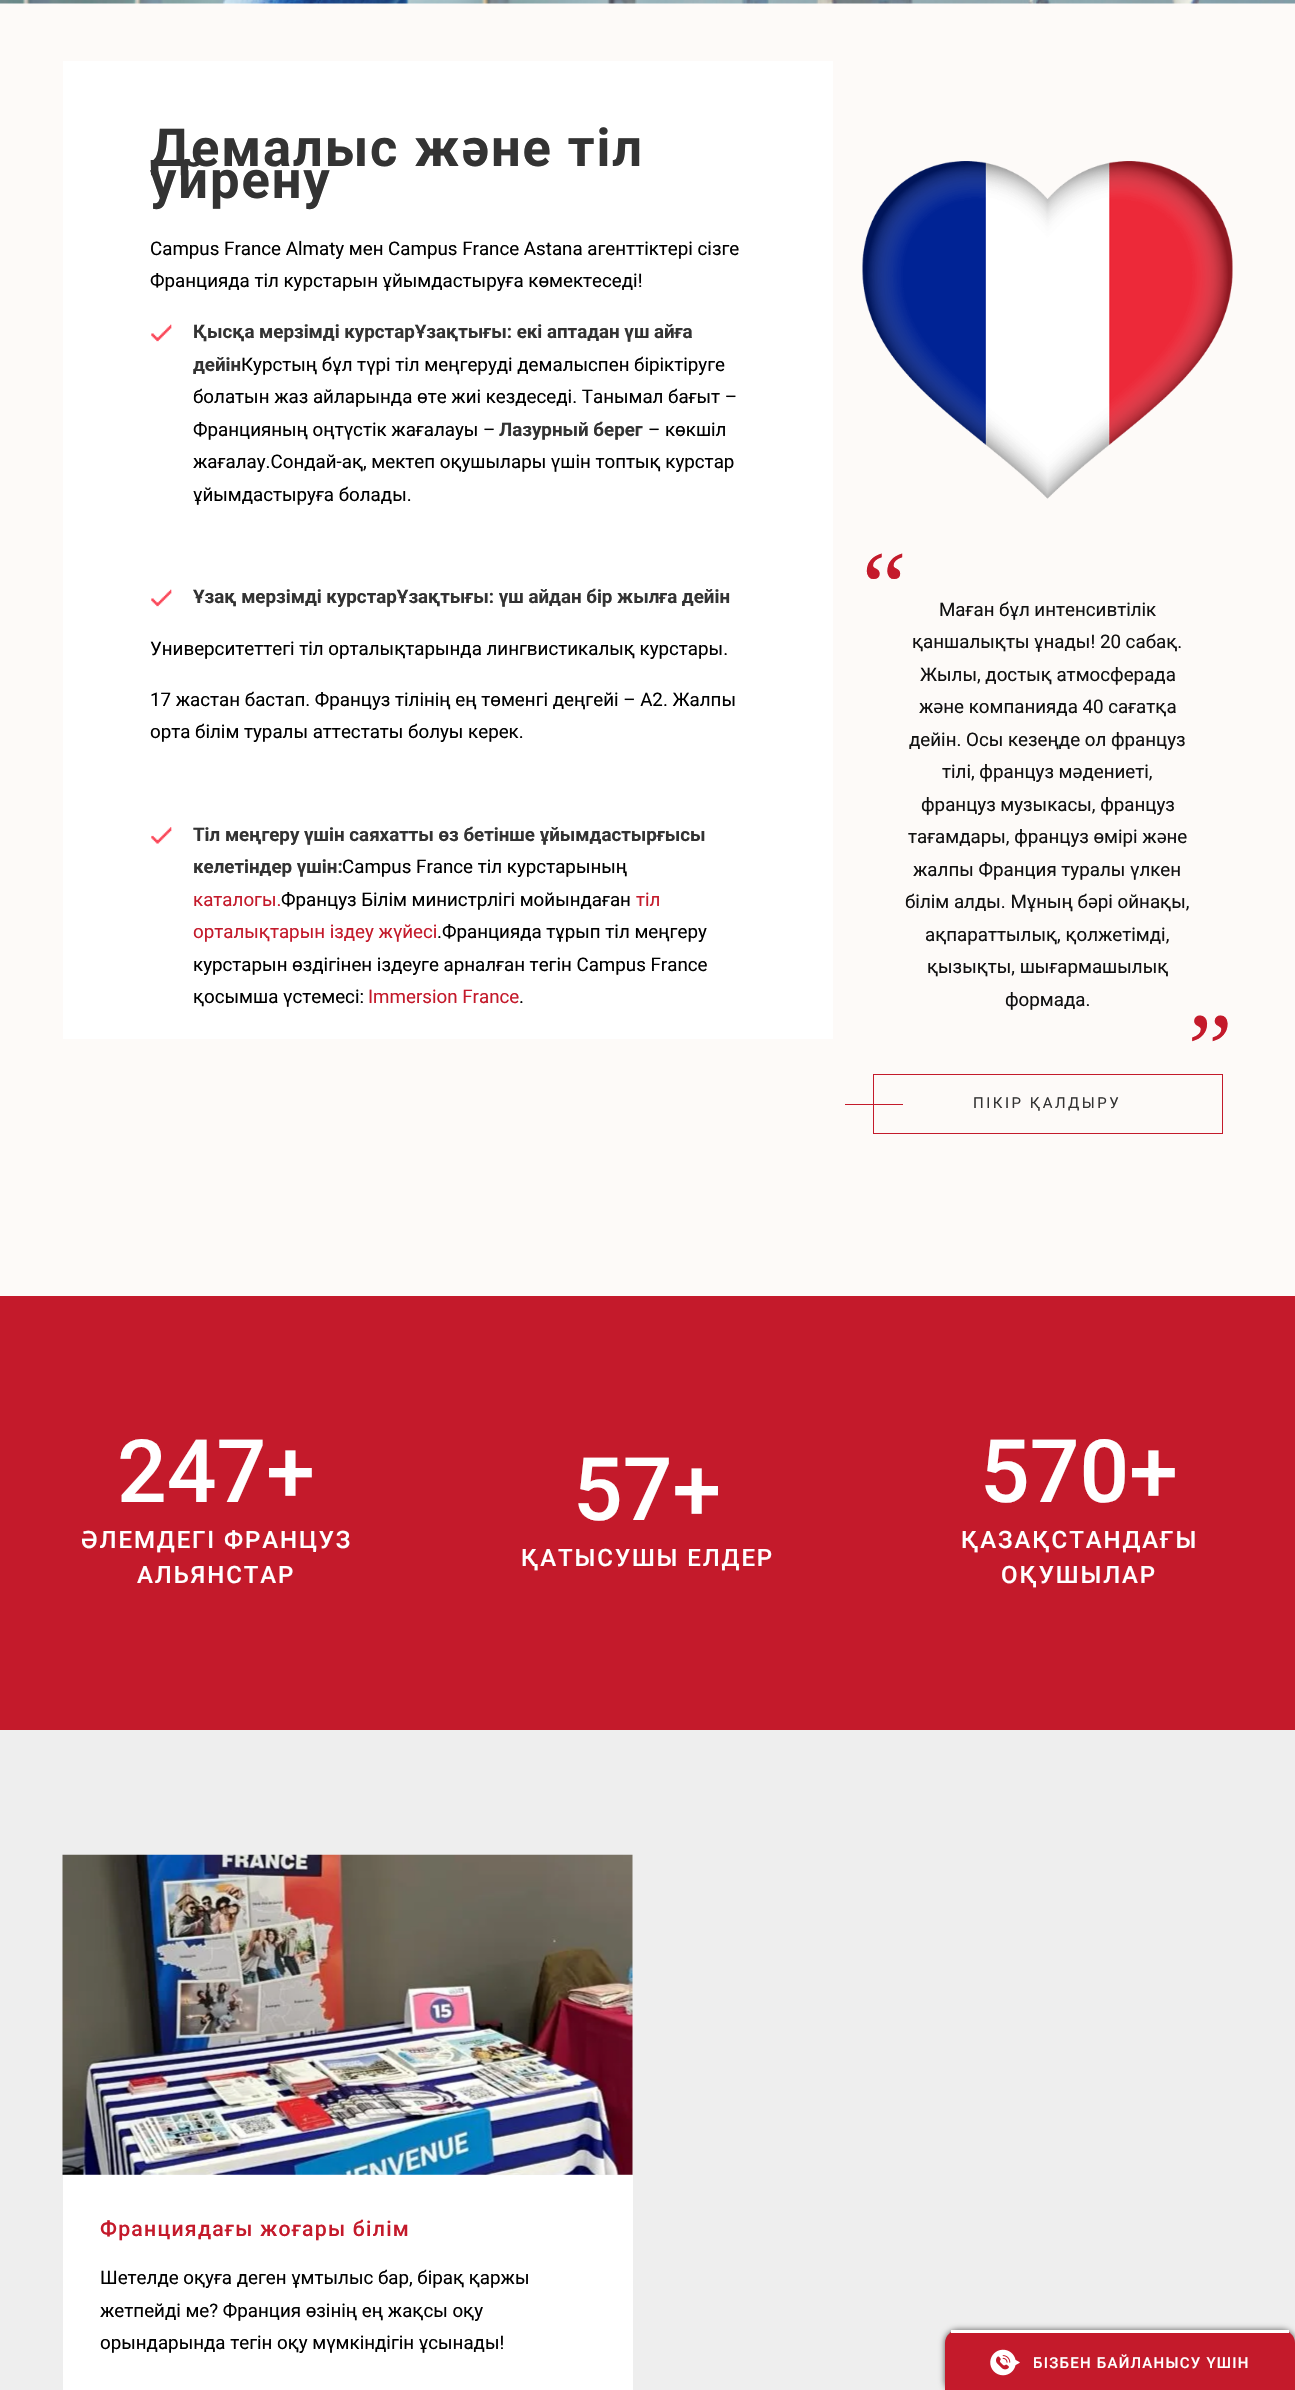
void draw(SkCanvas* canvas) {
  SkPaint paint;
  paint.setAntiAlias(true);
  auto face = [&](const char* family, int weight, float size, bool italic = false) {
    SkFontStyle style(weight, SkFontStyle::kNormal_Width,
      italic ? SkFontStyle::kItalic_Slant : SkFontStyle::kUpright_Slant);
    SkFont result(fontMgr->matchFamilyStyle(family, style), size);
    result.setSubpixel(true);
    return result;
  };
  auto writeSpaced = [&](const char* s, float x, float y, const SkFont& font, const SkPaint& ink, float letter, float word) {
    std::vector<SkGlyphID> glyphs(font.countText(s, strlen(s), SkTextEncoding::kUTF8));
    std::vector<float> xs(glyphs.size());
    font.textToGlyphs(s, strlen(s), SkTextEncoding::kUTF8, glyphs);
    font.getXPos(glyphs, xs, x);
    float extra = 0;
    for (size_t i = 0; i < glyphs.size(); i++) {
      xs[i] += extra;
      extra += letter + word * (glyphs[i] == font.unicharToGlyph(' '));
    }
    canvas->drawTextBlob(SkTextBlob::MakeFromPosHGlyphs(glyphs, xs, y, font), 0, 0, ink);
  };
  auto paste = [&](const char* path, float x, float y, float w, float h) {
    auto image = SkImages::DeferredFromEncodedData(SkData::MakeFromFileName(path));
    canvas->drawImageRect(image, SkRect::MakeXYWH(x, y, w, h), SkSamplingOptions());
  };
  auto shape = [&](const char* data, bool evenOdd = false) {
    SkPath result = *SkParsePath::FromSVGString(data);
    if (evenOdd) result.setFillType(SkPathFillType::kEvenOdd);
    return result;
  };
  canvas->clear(0xfffdfaf8);
  paste("img/1.png", 0, 0, 1295, 4);
  paint.setColor(0xffffffff);
  canvas->drawRect(SkRect::MakeXYWH(63, 61, 770, 978), paint);
  paste("img/2.png", 151, 324, 21, 18);
  paste("img/2.png", 151, 589, 21, 18);
  paste("img/3.png", 151, 827, 21, 17);
  paste("img/4.png", 862, 161, 371, 338);
  paint.setStroke(true);
  paint.setStrokeWidth(1);
  paint.setColor(0xffc41a2b);
  canvas->drawRect(SkRect::MakeXYWH(873.5f, 1074.5f, 349, 59), paint);
  paint.setStroke(false);
  {
    const struct { float x, y, w, h; SkColor color; } items[] = {
      {845, 1104, 58, 1, 0xffc41a2b},
      {0, 1296, 1295, 434, 0xffc41a2b},
      {0, 1730, 1295, 660, 0xffeeeeee},
    };
    for (auto [x, y, w, h, color] : items) {
      paint.setColor(color);
      canvas->drawRect(SkRect::MakeXYWH(x, y, w, h), paint);
    }
  }
  paste("img/5.png", 62, 1854, 571, 321);
  paint.setColor(0xffffffff);
  canvas->drawRect(SkRect::MakeXYWH(63, 2175, 570, 215), paint);
  paint.setColor(0xff555555);
  paint.setMaskFilter(SkMaskFilter::MakeBlur(kNormal_SkBlurStyle, 3));
  canvas->drawRoundRect(SkRect::MakeXYWH(945, 2330, 350, 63), 13, 13, paint);
  paint.setMaskFilter(nullptr);
  paint.setColor(0xffc41a2b);
  canvas->drawPath(shape("M958 2330H1282C1289 2330 1295 2336 1295 2343V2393H945V2343C945 2336 951 2330 958 2330Z"), paint);
  paint.setColor(0xffffffff);
  canvas->drawRect(SkRect::MakeXYWH(951, 2330, 338, 3), paint);
  paste("img/6.png", 990, 2349, 30, 27);
  auto f0 = face("Roboto", 700, 52.5f);
  paint.setColor(0xff333333);
  writeSpaced("Демалыс және тіл", 150, 166, f0, paint, 1.9f, 0);
  writeSpaced("уйрену", 150, 198, f0, paint, 1.9f, 0);
  auto f1 = face("Roboto", 400, 18.75f);
  paint.setColor(0xff000000);
  canvas->drawString("Campus France Almaty мен Campus France Astana агенттіктері сізге", 150, 255, f1, paint);
  canvas->drawString("Францияда тіл курстарын ұйымдастыруға көмектеседі!", 150, 287, f1, paint);
  auto f2 = face("Roboto", 700, 18.75f);
  paint.setColor(0xff333333);
  canvas->drawString("Қысқа мерзімді курстарҰзақтығы: екі аптадан үш айға", 193, 338, f2, paint);
  canvas->drawString("дейін", 193, 371, f2, paint);
  paint.setColor(0xff000000);
  {
    const struct { const char* s; float x, y; } items[] = {
      {"Курстың бұл түрі тіл меңгеруді демалыспен біріктіруге", 241, 371},
      {"болатын жаз айларында өте жиі кездеседі. Танымал бағыт –", 193, 403},
      {"Францияның оңтүстік жағалауы –", 193, 436},
    };
    for (auto [s, x, y] : items) {
      canvas->drawString(s, x, y, f1, paint);
    }
  }
  paint.setColor(0xff333333);
  canvas->drawString("Лазурный берег", 499, 436, f2, paint);
  paint.setColor(0xff000000);
  {
    const struct { const char* s; float x, y; } items[] = {
      {"– көкшіл", 648, 436},
      {"жағалау.Сондай-ақ, мектеп оқушылары үшін топтық курстар", 193, 468},
      {"ұйымдастыруға болады.", 193, 501},
    };
    for (auto [s, x, y] : items) {
      canvas->drawString(s, x, y, f1, paint);
    }
  }
  paint.setColor(0xff333333);
  canvas->drawString("Ұзақ мерзімді курстарҰзақтығы: үш айдан бір жылға дейін", 193, 603, f2, paint);
  paint.setColor(0xff000000);
  {
    const struct { const char* s; float x, y; } items[] = {
      {"Университеттегі тіл орталықтарында лингвистикалық курстары.", 150, 655},
      {"17 жастан бастап. Француз тілінің ең төменгі деңгейі – A2. Жалпы", 150, 706},
      {"орта білім туралы аттестаты болуы керек.", 150, 738},
    };
    for (auto [s, x, y] : items) {
      canvas->drawString(s, x, y, f1, paint);
    }
  }
  paint.setColor(0xff333333);
  canvas->drawString("Тіл меңгеру үшін саяхатты өз бетінше ұйымдастырғысы", 193, 841, f2, paint);
  canvas->drawString("келетіндер үшін:", 193, 873, f2, paint);
  paint.setColor(0xff000000);
  canvas->drawString("Campus France тіл курстарының", 342, 873, f1, paint);
  paint.setColor(0xffc41a2b);
  canvas->drawString("каталогы.", 193, 906, f1, paint);
  paint.setColor(0xff000000);
  canvas->drawString("Француз Білім министрлігі мойындаған", 281, 906, f1, paint);
  paint.setColor(0xffc41a2b);
  canvas->drawString("тіл", 636, 906, f1, paint);
  canvas->drawString("орталықтарын іздеу жүйесі", 193, 938, f1, paint);
  paint.setColor(0xff000000);
  {
    const struct { const char* s; float x, y; } items[] = {
      {".Францияда тұрып тіл меңгеру", 437, 938},
      {"курстарын өздігінен іздеуге арналған тегін Campus France", 193, 971},
      {"қосымша үстемесі:", 193, 1003},
    };
    for (auto [s, x, y] : items) {
      canvas->drawString(s, x, y, f1, paint);
    }
  }
  paint.setColor(0xffc41a2b);
  canvas->drawString("Immersion France", 368, 1003, f1, paint);
  paint.setColor(0xff000000);
  canvas->drawString(".", 519, 1003, f1, paint);
  auto f3 = face("Liberation Serif", 400, 100);
  paint.setColor(0xffc41a2b);
  canvas->drawString("“", 862, 620, f3, paint);
  paint.setColor(0xff111111);
  {
    const struct { const char* s; float x, y; } items[] = {
      {"Маған бұл интенсивтілік", 939, 616},
      {"қаншалықты ұнады! 20 сабақ.", 912, 648},
      {"Жылы, достық атмосферада", 920, 681},
      {"және компанияда 40 сағатқа", 919, 713},
      {"дейін. Осы кезеңде ол француз", 909, 746},
      {"тілі, француз мәдениеті,", 942, 778},
      {"француз музыкасы, француз", 921, 811},
      {"тағамдары, француз өмірі және", 908, 843},
      {"жалпы Франция туралы үлкен", 913, 876},
      {"білім алды. Мұның бәрі ойнақы,", 905, 908},
      {"ақпараттылық, қолжетімді,", 925, 941},
      {"қызықты, шығармашылық", 927, 973},
      {"формада.", 1005, 1006},
    };
    for (auto [s, x, y] : items) {
      canvas->drawString(s, x, y, f1, paint);
    }
  }
  paint.setColor(0xffc41a2b);
  canvas->drawString("”", 1188, 1082, f3, paint);
  auto f4 = face("Roboto", 400, 15);
  paint.setColor(0xff333333);
  writeSpaced("ПІКІР ҚАЛДЫРУ", 973, 1108, f4, paint, 2.5f, 0);
  auto f5 = face("Roboto", 500, 87.5f);
  paint.setColor(0xffffffff);
  canvas->drawString("247+", 117, 1502, f5, paint);
  auto f6 = face("Roboto", 500, 24);
  writeSpaced("ӘЛЕМДЕГІ ФРАНЦУЗ", 81, 1548, f6, paint, 1.9f, 0);
  writeSpaced("АЛЬЯНСТАР", 137, 1583, f6, paint, 1.9f, 0);
  canvas->drawString("57+", 573, 1520, f5, paint);
  writeSpaced("ҚАТЫСУШЫ ЕЛДЕР", 521, 1566, f6, paint, 1.9f, 0);
  canvas->drawString("570+", 980, 1502, f5, paint);
  writeSpaced("ҚАЗАҚСТАНДАҒЫ", 961, 1548, f6, paint, 1.9f, 0);
  writeSpaced("ОҚУШЫЛАР", 1001, 1583, f6, paint, 1.9f, 0);
  auto f7 = face("Roboto", 500, 21.25f);
  paint.setColor(0xffc41a2b);
  writeSpaced("Франциядағы жоғары білім", 100, 2236, f7, paint, 1.25f, 0);
  paint.setColor(0xff000000);
  {
    const struct { const char* s; float x, y; } items[] = {
      {"Шетелде оқуға деген ұмтылыс бар, бірақ қаржы", 100, 2284},
      {"жетпейді ме? Франция өзінің ең жақсы оқу", 100, 2317},
      {"орындарында тегін оқу мүмкіндігін ұсынады!", 100, 2349},
    };
    for (auto [s, x, y] : items) {
      canvas->drawString(s, x, y, f1, paint);
    }
  }
  auto f8 = face("Roboto", 500, 15);
  paint.setColor(0xffffffff);
  writeSpaced("БІЗБЕН БАЙЛАНЫСУ ҮШІН", 1033, 2368, f8, paint, 1.25f, 0);
}
